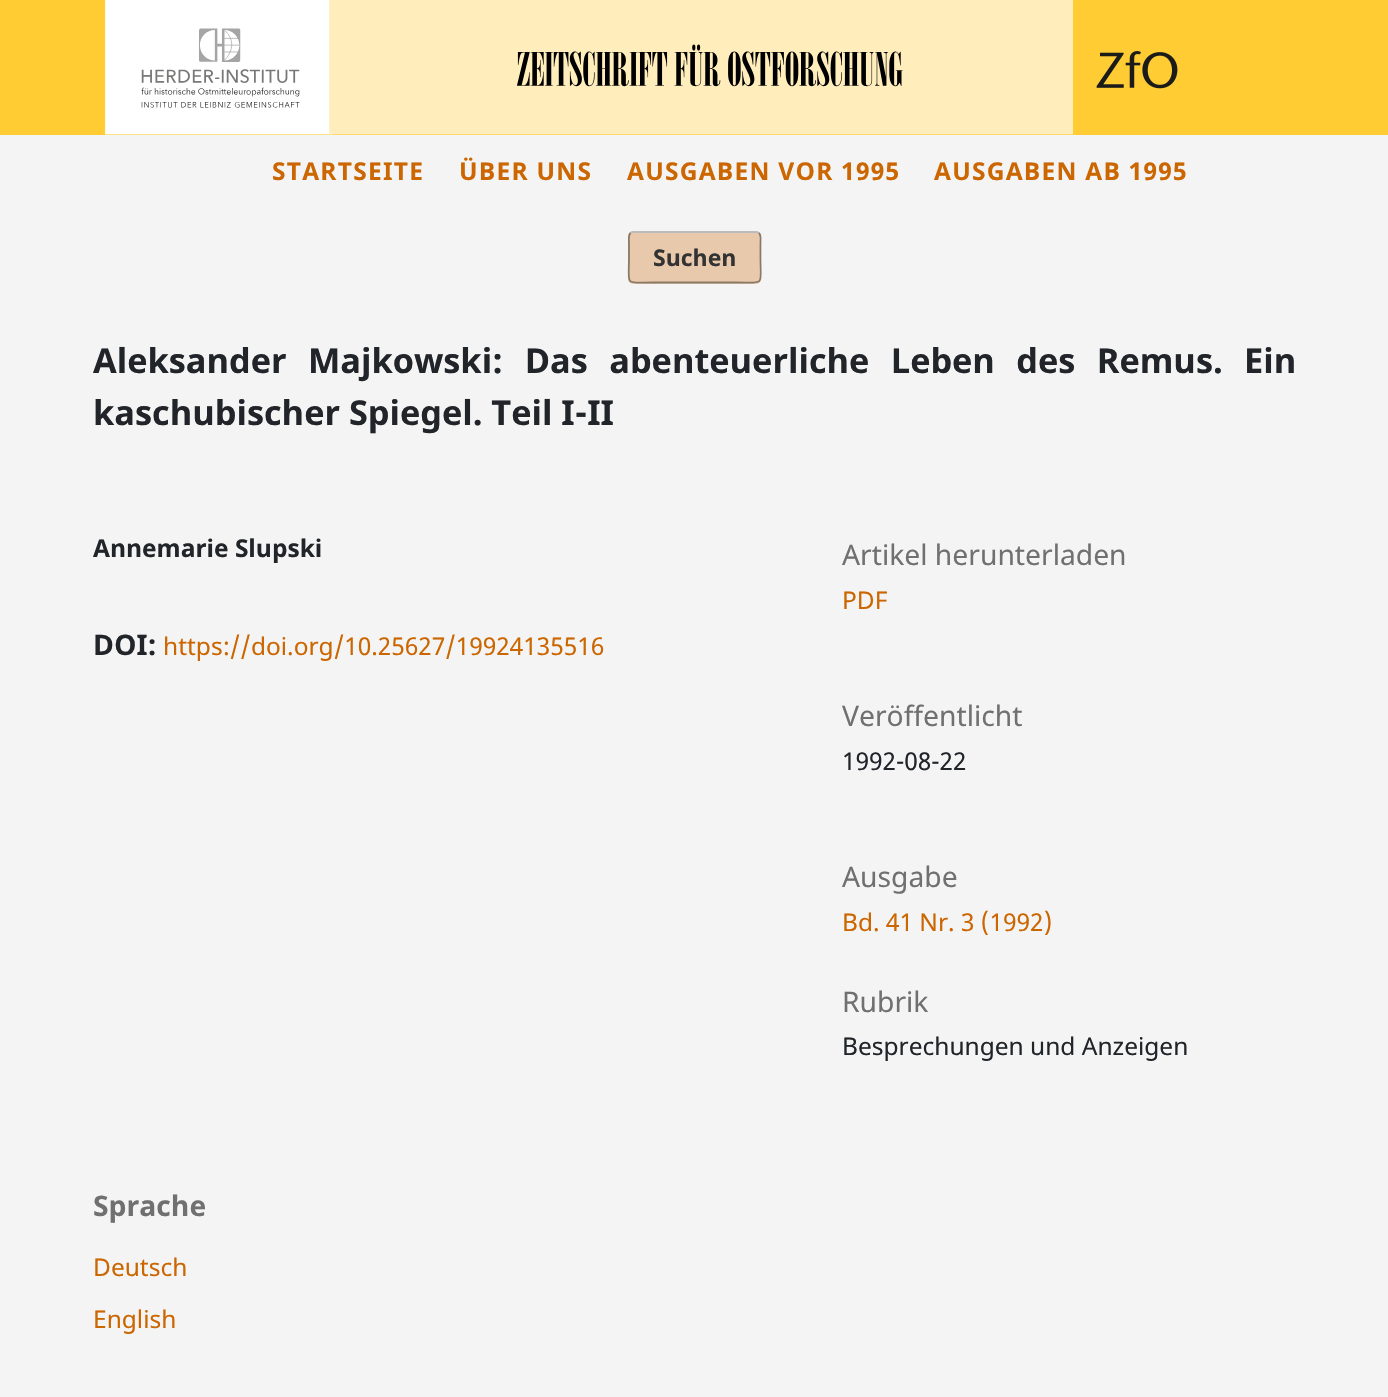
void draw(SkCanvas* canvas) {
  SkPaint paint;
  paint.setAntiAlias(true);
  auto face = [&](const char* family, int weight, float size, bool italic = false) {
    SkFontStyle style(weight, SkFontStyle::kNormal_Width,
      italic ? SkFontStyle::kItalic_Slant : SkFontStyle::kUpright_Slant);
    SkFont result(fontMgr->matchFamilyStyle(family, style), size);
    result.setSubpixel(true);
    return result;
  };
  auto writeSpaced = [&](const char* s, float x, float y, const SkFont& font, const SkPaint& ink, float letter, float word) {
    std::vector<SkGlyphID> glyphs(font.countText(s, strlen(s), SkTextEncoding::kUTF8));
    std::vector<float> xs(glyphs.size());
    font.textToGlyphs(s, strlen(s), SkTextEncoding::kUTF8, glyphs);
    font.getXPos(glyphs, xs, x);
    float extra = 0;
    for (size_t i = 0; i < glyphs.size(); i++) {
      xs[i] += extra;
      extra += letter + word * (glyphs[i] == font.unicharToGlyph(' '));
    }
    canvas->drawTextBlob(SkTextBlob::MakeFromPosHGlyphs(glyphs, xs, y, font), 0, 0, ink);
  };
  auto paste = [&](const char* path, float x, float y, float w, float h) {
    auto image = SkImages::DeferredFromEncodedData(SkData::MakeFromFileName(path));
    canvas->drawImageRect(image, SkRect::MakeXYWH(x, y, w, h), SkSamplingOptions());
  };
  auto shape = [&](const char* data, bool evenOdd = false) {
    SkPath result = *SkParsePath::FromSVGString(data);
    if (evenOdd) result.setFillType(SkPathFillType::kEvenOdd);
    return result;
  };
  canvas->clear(0xfff4f4f4);
  paint.setColor(0xffffcc33);
  canvas->drawRect(SkRect::MakeXYWH(0, 0, 1388, 135), paint);
  paste("img/1.png", 105, 0, 228, 135);
  paste("img/2.png", 329, 0, 747, 135);
  paste("img/3.png", 1073, 0, 105, 135);
  paint.setColor(0xffe8c9ab);
  canvas->drawRoundRect(SkRect::MakeXYWH(628, 231, 133, 53), 5, 5, paint);
  paint.setStroke(true);
  paint.setStrokeWidth(1.8f);
  paint.setColor(0xffbbbbbb);
  canvas->drawPath(shape("M630.5 233L633 232H735.5H756L759 233"), paint);
  paint.setColor(0x66000000);
  canvas->drawPath(shape("M759 233C761.5 235.5 760.5 241 760.5 243V257C760.5 287 766 282.5 735.5 282.5H654C623.5 282.5 629 287 629 257V243C629 241 628 235.5 630.5 233"), paint);
  auto f0 = face("Noto Sans", 700, 24.5f);
  paint.setStroke(false);
  paint.setColor(0xffcc6600);
  {
    const struct { const char* s; float x, y; } items[] = {
      {"STARTSEITE", 272, 180},
      {"ÜBER UNS", 459, 180},
      {"AUSGABEN VOR 1995", 627, 180},
      {"AUSGABEN AB 1995", 934, 180},
    };
    for (auto [s, x, y] : items) {
      writeSpaced(s, x, y, f0, paint, 1.25f, 0);
    }
  }
  auto f1 = face("Noto Sans", 700, 23);
  paint.setColor(0xff333333);
  canvas->drawString("Suchen", 653, 266, f1, paint);
  auto f2 = face("Noto Sans", 700, 34.3f);
  paint.setColor(0xff212529);
  writeSpaced("Aleksander Majkowski: Das abenteuerliche Leben des Remus. Ein", 93, 373, f2, paint, 0, 12.5f);
  canvas->drawString("kaschubischer Spiegel. Teil I-II", 93, 425, f2, paint);
  canvas->drawString("Annemarie Slupski", 93, 557, f0, paint);
  auto f3 = face("Noto Sans", 700, 28.25f);
  canvas->drawString("DOI:", 93, 655, f3, paint);
  auto f4 = face("Noto Sans", 400, 24.5f);
  paint.setColor(0xffcc6600);
  canvas->drawString("https://doi.org/10.25627/19924135516", 163, 655, f4, paint);
  auto f5 = face("Noto Sans", 400, 28.25f);
  paint.setColor(0xff707070);
  canvas->drawString("Artikel herunterladen", 842, 565, f5, paint);
  paint.setColor(0xffcc6600);
  canvas->drawString("PDF", 842, 609, f4, paint);
  paint.setColor(0xff707070);
  canvas->drawString("Veröffentlicht", 842, 726, f5, paint);
  paint.setColor(0xff212529);
  canvas->drawString("1992-08-22", 842, 770, f4, paint);
  paint.setColor(0xff707070);
  canvas->drawString("Ausgabe", 842, 887, f5, paint);
  paint.setColor(0xffcc6600);
  canvas->drawString("Bd. 41 Nr. 3 (1992)", 842, 931, f4, paint);
  paint.setColor(0xff707070);
  canvas->drawString("Rubrik", 842, 1012, f5, paint);
  paint.setColor(0xff212529);
  canvas->drawString("Besprechungen und Anzeigen", 842, 1055, f4, paint);
  paint.setColor(0xff707070);
  canvas->drawString("Sprache", 93, 1216, f3, paint);
  paint.setColor(0xffcc6600);
  canvas->drawString("Deutsch", 93, 1276, f4, paint);
  canvas->drawString("English", 93, 1328, f4, paint);
}
